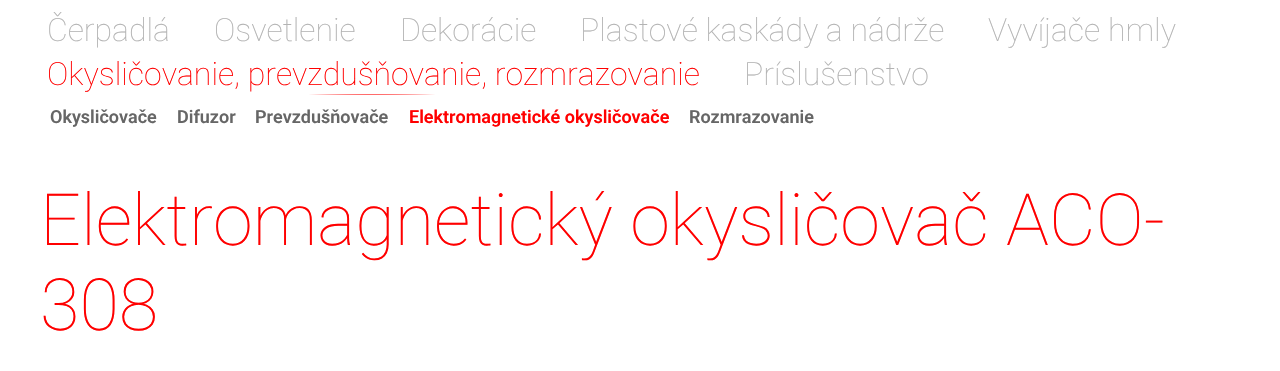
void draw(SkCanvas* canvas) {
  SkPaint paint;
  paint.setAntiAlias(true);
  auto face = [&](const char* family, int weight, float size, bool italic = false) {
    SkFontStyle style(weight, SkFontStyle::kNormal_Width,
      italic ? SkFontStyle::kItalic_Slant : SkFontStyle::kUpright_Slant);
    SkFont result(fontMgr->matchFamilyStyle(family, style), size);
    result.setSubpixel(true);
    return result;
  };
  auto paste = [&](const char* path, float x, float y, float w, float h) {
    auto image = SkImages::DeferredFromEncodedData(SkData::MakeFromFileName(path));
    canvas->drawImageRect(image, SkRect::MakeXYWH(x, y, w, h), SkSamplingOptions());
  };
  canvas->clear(0xffffffff);
  paste("img/1.png", 309, 94, 126, 1);
  auto f0 = face("Roboto", 100, 32);
  paint.setColor(0xffb3b3b3);
  {
    const struct { const char* s; float x, y; } items[] = {
      {"Čerpadlá", 47, 41},
      {"Osvetlenie", 214, 41},
      {"Dekorácie", 400, 41},
      {"Plastové kaskády a nádrže", 580, 41},
      {"Vyvíjače hmly", 988, 41},
    };
    for (auto [s, x, y] : items) {
      canvas->drawString(s, x, y, f0, paint);
    }
  }
  paint.setColor(0xffff0000);
  canvas->drawString("Okysličovanie, prevzdušňovanie, rozmrazovanie", 47, 85, f0, paint);
  paint.setColor(0xffb3b3b3);
  canvas->drawString("Príslušenstvo", 744, 85, f0, paint);
  auto f1 = face("Roboto", 600, 18);
  paint.setColor(0xff666666);
  {
    const struct { const char* s; float x, y; } items[] = {
      {"Okysličovače", 50, 123},
      {"Difuzor", 177, 123},
      {"Prevzdušňovače", 255, 123},
    };
    for (auto [s, x, y] : items) {
      canvas->drawString(s, x, y, f1, paint);
    }
  }
  paint.setColor(0xffff0000);
  canvas->drawString("Elektromagnetické okysličovače", 409, 123, f1, paint);
  paint.setColor(0xff666666);
  canvas->drawString("Rozmrazovanie", 689, 123, f1, paint);
  auto f2 = face("Roboto", 100, 72);
  paint.setColor(0xffff0000);
  canvas->drawString("Elektromagnetický okysličovač ACO-", 40, 245, f2, paint);
  canvas->drawString("308", 40, 330, f2, paint);
}
